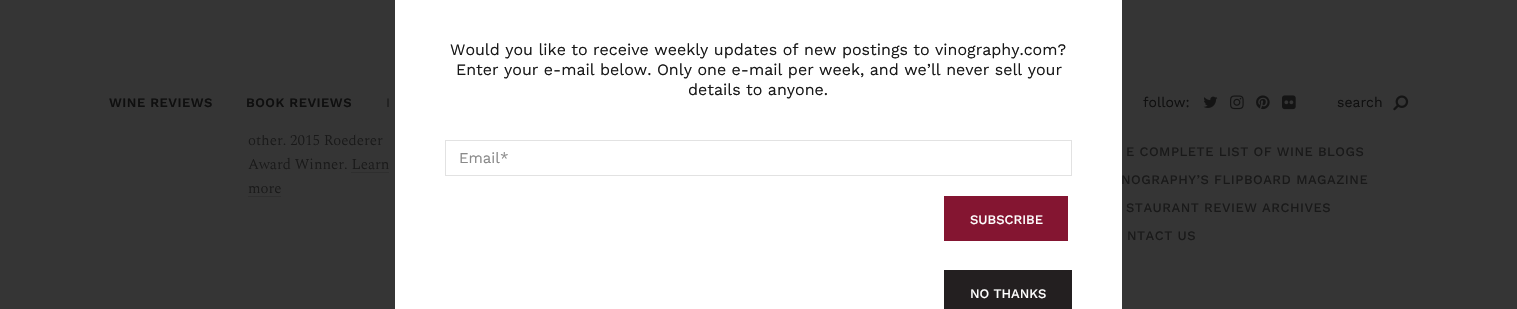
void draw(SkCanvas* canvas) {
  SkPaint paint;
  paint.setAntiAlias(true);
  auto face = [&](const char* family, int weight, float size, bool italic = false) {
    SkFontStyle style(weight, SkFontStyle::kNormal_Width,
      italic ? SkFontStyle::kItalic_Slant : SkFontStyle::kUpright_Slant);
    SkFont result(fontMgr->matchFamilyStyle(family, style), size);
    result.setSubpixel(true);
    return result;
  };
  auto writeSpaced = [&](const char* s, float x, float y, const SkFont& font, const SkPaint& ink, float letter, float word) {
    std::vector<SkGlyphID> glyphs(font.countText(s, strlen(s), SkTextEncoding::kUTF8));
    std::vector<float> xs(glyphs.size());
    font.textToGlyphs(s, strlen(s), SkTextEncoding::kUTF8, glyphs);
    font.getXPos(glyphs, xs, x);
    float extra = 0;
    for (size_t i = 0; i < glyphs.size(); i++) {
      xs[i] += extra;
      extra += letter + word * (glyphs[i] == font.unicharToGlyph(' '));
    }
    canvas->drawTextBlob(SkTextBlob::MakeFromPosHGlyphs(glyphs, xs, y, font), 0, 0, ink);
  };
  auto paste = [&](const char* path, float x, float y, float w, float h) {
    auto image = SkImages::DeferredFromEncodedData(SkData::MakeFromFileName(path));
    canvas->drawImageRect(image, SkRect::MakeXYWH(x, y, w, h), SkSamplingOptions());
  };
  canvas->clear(0xff353535);
  paint.setColor(0xffffffff);
  canvas->drawRect(SkRect::MakeXYWH(395, 0, 727, 309), paint);
  paint.setStroke(true);
  paint.setStrokeWidth(1);
  paint.setColor(0xffe2e2e2);
  canvas->drawRect(SkRect::MakeXYWH(445.5f, 140.5f, 626, 35), paint);
  paint.setStroke(false);
  paint.setColor(0xff841531);
  canvas->drawRect(SkRect::MakeXYWH(944, 196, 124, 45), paint);
  paint.setColor(0xff231f20);
  canvas->drawRect(SkRect::MakeXYWH(944, 270, 128, 39), paint);
  paste("img/1.png", 1203, 96, 15, 12);
  paste("img/2.png", 1230, 95, 14, 15);
  paste("img/3.png", 1256, 95, 14, 15);
  paste("img/4.png", 1282, 95, 14, 15);
  paste("img/5.png", 1393, 95, 16, 16);
  paint.setColor(0xff2e2e2e);
  canvas->drawRect(SkRect::MakeXYWH(351, 172, 38, 1), paint);
  canvas->drawRect(SkRect::MakeXYWH(248, 196, 33, 1), paint);
  auto f0 = face("Work Sans", 400, 16);
  paint.setColor(0xff191919);
  {
    const struct { const char* s; float x, y; } items[] = {
      {"Would you like to receive weekly updates of new postings to vinography.com?", 450, 55},
      {"Enter your e-mail below. Only one e-mail per week, and we’ll never sell your", 456, 75},
      {"details to anyone.", 688, 95},
    };
    for (auto [s, x, y] : items) {
      canvas->drawString(s, x, y, f0, paint);
    }
  }
  auto f1 = face("Work Sans", 400, 15);
  paint.setColor(0xff8a8a8a);
  canvas->drawString("Email*", 459, 163, f1, paint);
  auto f2 = face("Work Sans", 500, 13);
  paint.setColor(0xffffffff);
  canvas->drawString("SUBSCRIBE", 970, 224, f2, paint);
  canvas->drawString("NO THANKS", 970, 298, f2, paint);
  auto f3 = face("Work Sans", 600, 13);
  paint.setColor(0xff0f0f0f);
  writeSpaced("WINE REVIEWS", 109, 107, f3, paint, 0.5f, 0);
  writeSpaced("BOOK REVIEWS", 246, 107, f3, paint, 0.5f, 0);
  paint.setColor(0xff212121);
  writeSpaced("I", 386, 107, f3, paint, 0.5f, 0);
  auto f4 = face("Work Sans", 400, 14);
  paint.setColor(0xff0f0f0f);
  canvas->drawString("follow:", 1143, 107, f4, paint);
  canvas->drawString("search", 1337, 107, f4, paint);
  auto f5 = face("Spectral", 300, 15);
  paint.setColor(0xff191919);
  canvas->drawString("other. 2015 Roederer", 248, 145, f5, paint);
  paint.setColor(0xff353535);
  canvas->drawRect(SkRect::MakeXYWH(261, 133, 94, 2), paint);
  paint.setColor(0xff191919);
  canvas->drawString("Award Winner. Learn", 248, 169, f5, paint);
  canvas->drawString("more", 248, 193, f5, paint);
  {
    const struct { const char* s; float x, y; } items[] = {
      {"E COMPLETE LIST OF WINE BLOGS", 1126, 156},
      {"NOGRAPHY’S FLIPBOARD MAGAZINE", 1121, 184},
      {"STAURANT REVIEW ARCHIVES", 1126, 212},
      {"NTACT US", 1127, 240},
    };
    for (auto [s, x, y] : items) {
      writeSpaced(s, x, y, f2, paint, 0.5f, 0);
    }
  }
}
